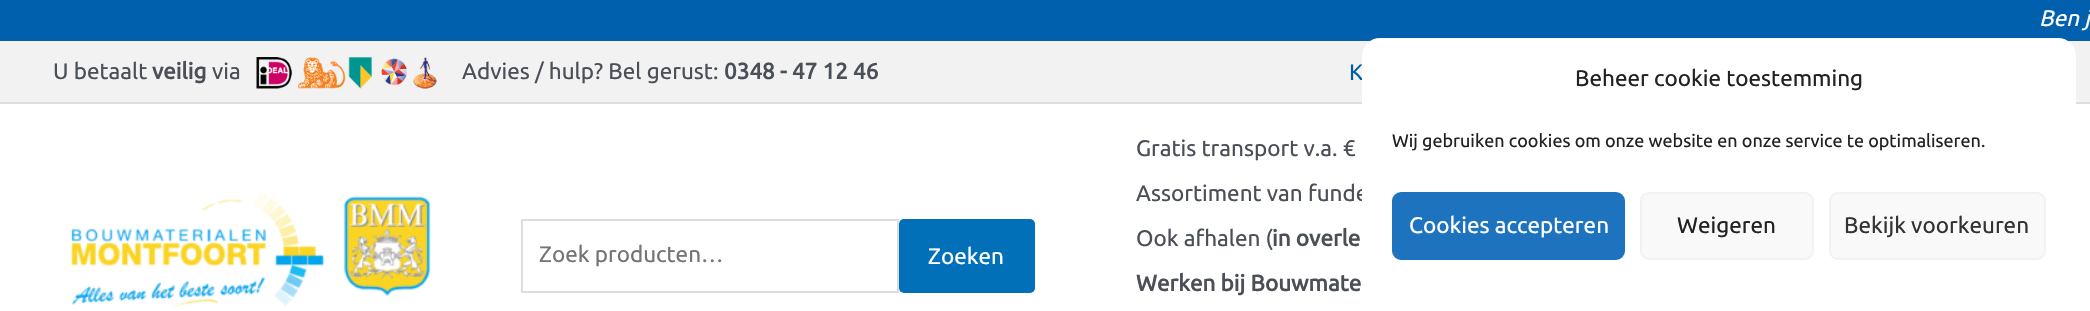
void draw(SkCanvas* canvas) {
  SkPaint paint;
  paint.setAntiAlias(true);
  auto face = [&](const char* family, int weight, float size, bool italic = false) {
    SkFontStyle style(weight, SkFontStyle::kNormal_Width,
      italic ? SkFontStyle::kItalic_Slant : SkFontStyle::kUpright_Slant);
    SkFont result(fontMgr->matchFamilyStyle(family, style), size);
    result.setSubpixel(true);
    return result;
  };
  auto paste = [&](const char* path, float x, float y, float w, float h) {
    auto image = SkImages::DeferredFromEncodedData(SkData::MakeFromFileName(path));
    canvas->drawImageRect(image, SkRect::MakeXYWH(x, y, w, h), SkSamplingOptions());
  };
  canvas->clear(0xffffffff);
  {
    const struct { float x, y, w, h; SkColor color; } items[] = {
      {0, 0, 2090, 41, 0xff0060ad},
      {0, 41, 2090, 61, 0xfff2f2f2},
      {0, 102, 2090, 2, 0xffdddddd},
    };
    for (auto [x, y, w, h, color] : items) {
      paint.setColor(color);
      canvas->drawRect(SkRect::MakeXYWH(x, y, w, h), paint);
    }
  }
  paste("img/1.png", 256, 57, 181, 32);
  paste("img/2.png", 70, 192, 361, 115);
  paint.setStroke(true);
  paint.setStrokeWidth(2);
  canvas->drawRect(SkRect::MakeXYWH(522, 220, 376, 72), paint);
  paint.setStroke(false);
  paint.setColor(0xff0170b9);
  canvas->drawRoundRect(SkRect::MakeXYWH(899, 219, 136, 74), 5, 5, paint);
  auto f0 = face("Ubuntu", 400, 22.5f, true);
  paint.setColor(0xffffffff);
  canvas->drawString("Ben j", 2039, 26, f0, paint);
  auto f1 = face("Ubuntu", 400, 22.5f);
  paint.setColor(0xff4b4f58);
  canvas->drawString("U betaalt", 53, 79, f1, paint);
  auto f2 = face("Ubuntu", 700, 22.5f);
  canvas->drawString("veilig", 152, 79, f2, paint);
  canvas->drawString("via", 212, 79, f1, paint);
  canvas->drawString("Advies / hulp? Bel gerust:", 462, 79, f1, paint);
  canvas->drawString("0348 - 47 12 46", 724, 79, f2, paint);
  paint.setColor(0xff005ba5);
  canvas->drawString("K", 1349, 80, f1, paint);
  paint.setColor(0xff757575);
  canvas->drawString("Zoek producten…", 539, 262, f1, paint);
  paint.setColor(0xffffffff);
  canvas->drawString("Zoeken", 928, 264, f1, paint);
  paint.setColor(0xff4b4f58);
  {
    const struct { const char* s; float x, y; } items[] = {
      {"Gratis transport v.a. €", 1136, 156},
      {"Assortiment van funde", 1136, 201},
      {"Ook afhalen (", 1136, 246},
    };
    for (auto [s, x, y] : items) {
      canvas->drawString(s, x, y, f1, paint);
    }
  }
  canvas->drawString("in overle", 1272, 246, f2, paint);
  canvas->drawString("Werken bij Bouwmate", 1136, 291, f2, paint);
  paint.setColor(0xffffffff);
  canvas->drawRoundRect(SkRect::MakeXYWH(1362, 38, 714, 259), 18, 18, paint);
  paint.setColor(0xff222222);
  canvas->drawString("Beheer cookie toestemming", 1575, 86, f1, paint);
  auto f3 = face("Ubuntu", 400, 18);
  canvas->drawString("Wij gebruiken cookies om onze website en onze service te optimaliseren.", 1392, 147, f3, paint);
  paint.setColor(0xff1e73be);
  canvas->drawRoundRect(SkRect::MakeXYWH(1393, 193, 231, 66), 8, 8, paint);
  paint.setStroke(true);
  canvas->drawRoundRect(SkRect::MakeXYWH(1393, 193, 231, 66), 8, 8, paint);
  paint.setStroke(false);
  paint.setColor(0xffffffff);
  canvas->drawString("Cookies accepteren", 1409, 233, f1, paint);
  paint.setColor(0xfff9f9f9);
  canvas->drawRoundRect(SkRect::MakeXYWH(1641, 193, 172, 66), 8, 8, paint);
  paint.setStroke(true);
  paint.setColor(0xfff2f2f2);
  canvas->drawRoundRect(SkRect::MakeXYWH(1641, 193, 172, 66), 8, 8, paint);
  paint.setStroke(false);
  paint.setColor(0xff222222);
  canvas->drawString("Weigeren", 1677, 233, f1, paint);
  paint.setColor(0xfff9f9f9);
  canvas->drawRoundRect(SkRect::MakeXYWH(1830, 193, 215, 66), 8, 8, paint);
  paint.setStroke(true);
  paint.setColor(0xfff2f2f2);
  canvas->drawRoundRect(SkRect::MakeXYWH(1830, 193, 215, 66), 8, 8, paint);
  paint.setStroke(false);
  paint.setColor(0xff333333);
  canvas->drawString("Bekijk voorkeuren", 1844, 233, f1, paint);
}
